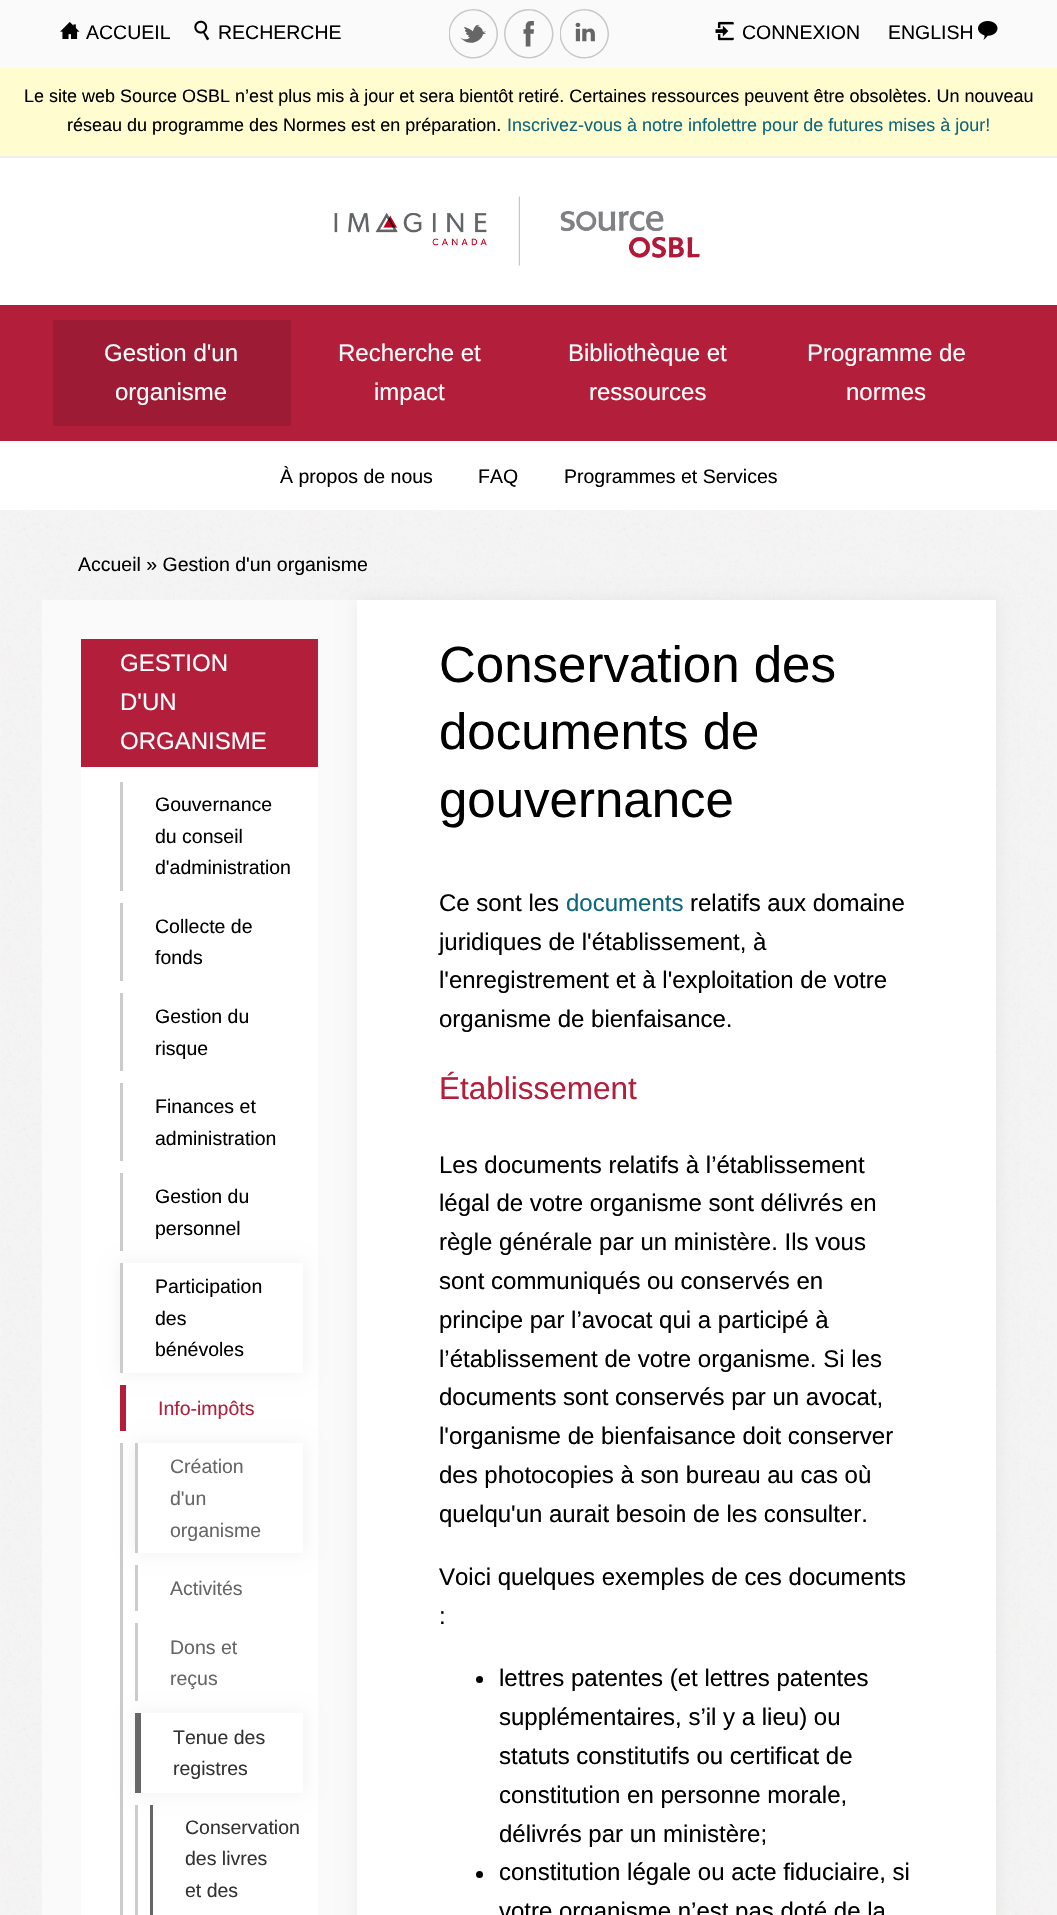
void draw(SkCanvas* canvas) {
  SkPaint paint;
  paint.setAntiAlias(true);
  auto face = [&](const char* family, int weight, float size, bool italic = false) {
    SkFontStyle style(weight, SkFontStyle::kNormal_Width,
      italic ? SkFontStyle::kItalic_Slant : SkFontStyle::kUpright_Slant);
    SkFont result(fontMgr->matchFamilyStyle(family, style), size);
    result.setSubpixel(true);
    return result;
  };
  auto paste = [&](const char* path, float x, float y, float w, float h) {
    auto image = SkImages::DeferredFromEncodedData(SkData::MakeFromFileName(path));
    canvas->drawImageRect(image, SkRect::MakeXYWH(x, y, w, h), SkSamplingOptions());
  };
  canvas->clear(0xffffffff);
  paint.setColor(0xfffafafa);
  canvas->drawRect(SkRect::MakeXYWH(0, 0, 1057, 68), paint);
  paint.setColor(0xffeeeeee);
  canvas->drawRect(SkRect::MakeXYWH(0, 156, 1057, 2), paint);
  paste("img/1.png", 60, 22, 20, 17);
  paste("img/2.png", 194, 20, 16, 21);
  paste("img/3.png", 449, 9, 49, 50);
  paste("img/4.png", 504, 9, 50, 50);
  paste("img/5.png", 560, 9, 49, 50);
  paste("img/6.png", 715, 21, 19, 20);
  paste("img/7.png", 978, 21, 20, 19);
  paint.setColor(0xfffffccf);
  canvas->drawRect(SkRect::MakeXYWH(0, 68, 1057, 88), paint);
  paste("img/8.png", 334, 196, 186, 70);
  paste("img/9.png", 560, 211, 140, 47);
  {
    const struct { float x, y, w, h; SkColor color; } items[] = {
      {0, 305, 1057, 136, 0xffb31e3b},
      {53, 320, 238, 106, 0xff9d1b35},
      {0, 510, 1057, 1405, 0xfff5f4f4},
    };
    for (auto [x, y, w, h, color] : items) {
      paint.setColor(color);
      canvas->drawRect(SkRect::MakeXYWH(x, y, w, h), paint);
    }
  }
  paste("img/10.png", 1, 510, 1054, 1405);
  {
    const struct { float x, y, w, h; SkColor color; } items[] = {
      {42, 600, 315, 1315, 0xfffafafa},
      {81, 639, 237, 128, 0xffb31e3b},
      {81, 767, 237, 1148, 0xffffffff},
      {120, 782, 3, 109, 0xffcccccc},
      {120, 903, 3, 78, 0xffcccccc},
      {120, 993, 3, 78, 0xffcccccc},
      {120, 1083, 3, 78, 0xffcccccc},
      {120, 1173, 3, 78, 0xffcccccc},
    };
    for (auto [x, y, w, h, color] : items) {
      paint.setColor(color);
      canvas->drawRect(SkRect::MakeXYWH(x, y, w, h), paint);
    }
  }
  paint.setColor(0x0d000000);
  paint.setMaskFilter(SkMaskFilter::MakeBlur(kNormal_SkBlurStyle, 7.5f));
  canvas->drawRect(SkRect::MakeXYWH(119, 1262, 186, 112), paint);
  paint.setMaskFilter(nullptr);
  {
    const struct { float x, y, w, h; SkColor color; } items[] = {
      {123, 1263, 180, 110, 0xffffffff},
      {120, 1263, 3, 110, 0xffcccccc},
      {120, 1385, 6, 46, 0xffb31e3b},
      {120, 1443, 3, 472, 0xffcccccc},
    };
    for (auto [x, y, w, h, color] : items) {
      paint.setColor(color);
      canvas->drawRect(SkRect::MakeXYWH(x, y, w, h), paint);
    }
  }
  paint.setColor(0x0d000000);
  paint.setMaskFilter(SkMaskFilter::MakeBlur(kNormal_SkBlurStyle, 7.5f));
  canvas->drawRect(SkRect::MakeXYWH(134, 1442, 171, 112), paint);
  paint.setMaskFilter(nullptr);
  {
    const struct { float x, y, w, h; SkColor color; } items[] = {
      {138, 1443, 165, 110, 0xffffffff},
      {135, 1443, 3, 110, 0xffcccccc},
      {135, 1565, 3, 46, 0xffcccccc},
      {135, 1623, 3, 78, 0xffcccccc},
    };
    for (auto [x, y, w, h, color] : items) {
      paint.setColor(color);
      canvas->drawRect(SkRect::MakeXYWH(x, y, w, h), paint);
    }
  }
  paint.setColor(0x0d000000);
  paint.setMaskFilter(SkMaskFilter::MakeBlur(kNormal_SkBlurStyle, 7.5f));
  canvas->drawRect(SkRect::MakeXYWH(134, 1712, 171, 82), paint);
  paint.setMaskFilter(nullptr);
  {
    const struct { float x, y, w, h; SkColor color; } items[] = {
      {141, 1713, 162, 80, 0xffffffff},
      {135, 1713, 6, 80, 0xff666666},
      {135, 1805, 3, 110, 0xffcccccc},
      {150, 1805, 3, 110, 0xff666666},
    };
    for (auto [x, y, w, h, color] : items) {
      paint.setColor(color);
      canvas->drawRect(SkRect::MakeXYWH(x, y, w, h), paint);
    }
  }
  paint.setColor(0x0d000000);
  paint.setMaskFilter(SkMaskFilter::MakeBlur(kNormal_SkBlurStyle, 7.5f));
  canvas->drawRect(SkRect::MakeXYWH(356, 599, 642, 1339), paint);
  paint.setMaskFilter(nullptr);
  paint.setColor(0xffffffff);
  canvas->drawRect(SkRect::MakeXYWH(357, 600, 639, 1315), paint);
  paint.setColor(0xff000000);
  canvas->drawCircle(479.5f, 1679.5f, 3.5f, paint);
  canvas->drawCircle(479.5f, 1874.5f, 3.5f, paint);
  auto f0 = face("Liberation Sans", 400, 19.5f);
  {
    const struct { const char* s; float x, y; } items[] = {
      {"ACCUEIL", 86, 39},
      {"RECHERCHE", 218, 39},
      {"CONNEXION", 742, 39},
      {"ENGLISH", 888, 39},
    };
    for (auto [s, x, y] : items) {
      canvas->drawString(s, x, y, f0, paint);
    }
  }
  auto f1 = face("Liberation Sans", 400, 18);
  canvas->drawString("Le site web Source OSBL n’est plus mis à jour et sera bientôt retiré. Certaines ressources peuvent être obsolètes. Un nouveau", 24, 102, f1, paint);
  canvas->drawString("réseau du programme des Normes est en préparation.", 67, 131, f1, paint);
  paint.setColor(0xff0e677b);
  canvas->drawString("Inscrivez-vous à notre infolettre pour de futures mises à jour!", 507, 131, f1, paint);
  auto f2 = face("Liberation Sans", 400, 24);
  paint.setColor(0xffffffff);
  {
    const struct { const char* s; float x, y; } items[] = {
      {"Gestion d'un", 104, 361},
      {"organisme", 115, 400},
      {"Recherche et", 338, 361},
      {"impact", 374, 400},
      {"Bibliothèque et", 568, 361},
      {"ressources", 589, 400},
      {"Programme de", 807, 361},
      {"normes", 846, 400},
    };
    for (auto [s, x, y] : items) {
      canvas->drawString(s, x, y, f2, paint);
    }
  }
  paint.setColor(0xff000000);
  {
    const struct { const char* s; float x, y; } items[] = {
      {"À propos de nous", 280, 483},
      {"FAQ", 478, 483},
      {"Programmes et Services", 564, 483},
      {"Accueil » Gestion d'un organisme", 78, 571},
    };
    for (auto [s, x, y] : items) {
      canvas->drawString(s, x, y, f0, paint);
    }
  }
  paint.setColor(0xffffffff);
  {
    const struct { const char* s; float x, y; } items[] = {
      {"GESTION", 120, 671},
      {"D'UN", 120, 710},
      {"ORGANISME", 120, 749},
    };
    for (auto [s, x, y] : items) {
      canvas->drawString(s, x, y, f2, paint);
    }
  }
  paint.setColor(0xff000000);
  {
    const struct { const char* s; float x, y; } items[] = {
      {"Gouvernance", 155, 811},
      {"du conseil", 155, 843},
      {"d'administration", 155, 874},
      {"Collecte de", 155, 933},
      {"fonds", 155, 964},
      {"Gestion du", 155, 1023},
      {"risque", 155, 1055},
      {"Finances et", 155, 1113},
      {"administration", 155, 1145},
      {"Gestion du", 155, 1203},
      {"personnel", 155, 1235},
      {"Participation", 155, 1293},
      {"des", 155, 1325},
      {"bénévoles", 155, 1356},
    };
    for (auto [s, x, y] : items) {
      canvas->drawString(s, x, y, f0, paint);
    }
  }
  paint.setColor(0xffb31e3b);
  canvas->drawString("Info-impôts", 158, 1415, f0, paint);
  paint.setColor(0xff666666);
  {
    const struct { const char* s; float x, y; } items[] = {
      {"Création", 170, 1473},
      {"d'un", 170, 1505},
      {"organisme", 170, 1537},
      {"Activités", 170, 1595},
      {"Dons et", 170, 1654},
      {"reçus", 170, 1685},
    };
    for (auto [s, x, y] : items) {
      canvas->drawString(s, x, y, f0, paint);
    }
  }
  paint.setColor(0xff333333);
  {
    const struct { const char* s; float x, y; } items[] = {
      {"Tenue des", 173, 1744},
      {"registres", 173, 1775},
      {"Conservation", 185, 1834},
      {"des livres", 185, 1865},
      {"et des", 185, 1897},
    };
    for (auto [s, x, y] : items) {
      canvas->drawString(s, x, y, f0, paint);
    }
  }
  auto f3 = face("Liberation Sans", 400, 51);
  paint.setColor(0xff000000);
  {
    const struct { const char* s; float x, y; } items[] = {
      {"Conservation des", 439, 682},
      {"documents de", 439, 749},
      {"gouvernance", 439, 817},
    };
    for (auto [s, x, y] : items) {
      canvas->drawString(s, x, y, f3, paint);
    }
  }
  canvas->drawString("Ce sont les", 439, 911, f2, paint);
  paint.setColor(0xff0e677b);
  canvas->drawString("documents", 566, 911, f2, paint);
  paint.setColor(0xff000000);
  {
    const struct { const char* s; float x, y; } items[] = {
      {"relatifs aux domaine", 690, 911},
      {"juridiques de l'établissement, à", 439, 950},
      {"l'enregistrement et à l'exploitation de votre", 439, 988},
      {"organisme de bienfaisance.", 439, 1027},
    };
    for (auto [s, x, y] : items) {
      canvas->drawString(s, x, y, f2, paint);
    }
  }
  auto f4 = face("Liberation Sans", 400, 31.5f);
  paint.setColor(0xffb31e3b);
  canvas->drawString("Établissement", 439, 1099, f4, paint);
  paint.setColor(0xff000000);
  {
    const struct { const char* s; float x, y; } items[] = {
      {"Les documents relatifs à l’établissement", 439, 1173},
      {"légal de votre organisme sont délivrés en", 439, 1211},
      {"règle générale par un ministère. Ils vous", 439, 1250},
      {"sont communiqués ou conservés en", 439, 1289},
      {"principe par l’avocat qui a participé à", 439, 1328},
      {"l’établissement de votre organisme. Si les", 439, 1367},
      {"documents sont conservés par un avocat,", 439, 1405},
      {"l'organisme de bienfaisance doit conserver", 439, 1444},
      {"des photocopies à son bureau au cas où", 439, 1483},
      {"quelqu'un aurait besoin de les consulter.", 439, 1522},
      {"Voici quelques exemples de ces documents", 439, 1585},
      {":", 439, 1624},
      {"lettres patentes (et lettres patentes", 499, 1686},
      {"supplémentaires, s’il y a lieu) ou", 499, 1725},
      {"statuts constitutifs ou certificat de", 499, 1764},
      {"constitution en personne morale,", 499, 1803},
      {"délivrés par un ministère;", 499, 1842},
      {"constitution légale ou acte fiduciaire, si", 499, 1880},
      {"votre organisme n’est pas doté de la", 499, 1919},
    };
    for (auto [s, x, y] : items) {
      canvas->drawString(s, x, y, f2, paint);
    }
  }
}
